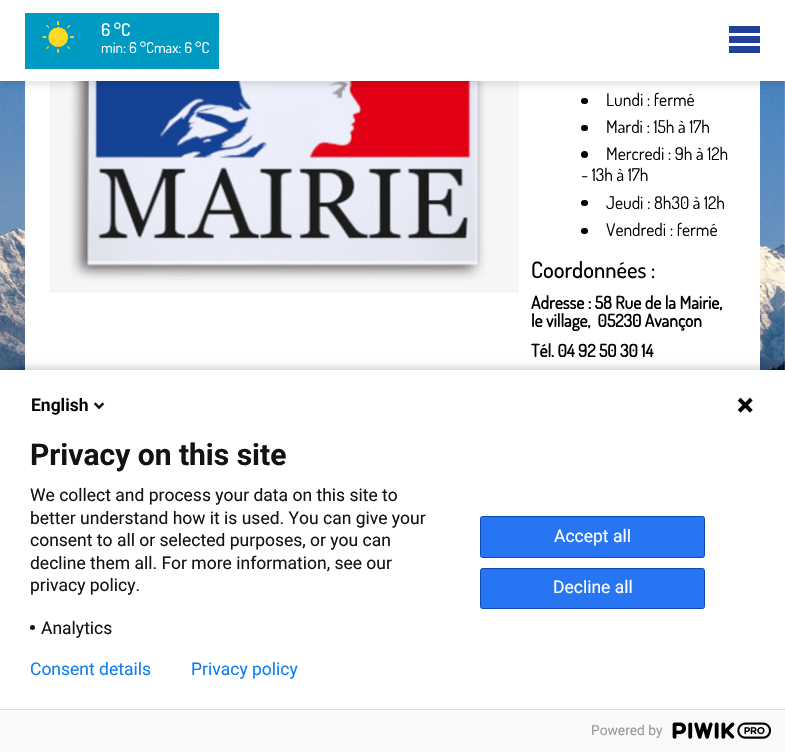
void draw(SkCanvas* canvas) {
  SkPaint paint;
  paint.setAntiAlias(true);
  auto face = [&](const char* family, int weight, float size, bool italic = false) {
    SkFontStyle style(weight, SkFontStyle::kNormal_Width,
      italic ? SkFontStyle::kItalic_Slant : SkFontStyle::kUpright_Slant);
    SkFont result(fontMgr->matchFamilyStyle(family, style), size);
    result.setSubpixel(true);
    return result;
  };
  auto paste = [&](const char* path, float x, float y, float w, float h) {
    auto image = SkImages::DeferredFromEncodedData(SkData::MakeFromFileName(path));
    canvas->drawImageRect(image, SkRect::MakeXYWH(x, y, w, h), SkSamplingOptions());
  };
  canvas->clear(0xffffffff);
  paste("img/2.png", 0, 81, 785, 289);
  paint.setColor(0xffffffff);
  canvas->drawRect(SkRect::MakeXYWH(25, 81, 735, 289), paint);
  paste("img/3.png", 50, 81, 469, 212);
  paint.setColor(0x1a000000);
  paint.setMaskFilter(SkMaskFilter::MakeBlur(kNormal_SkBlurStyle, 3));
  canvas->drawRect(SkRect::MakeXYWH(0, 4, 785, 81), paint);
  paint.setMaskFilter(nullptr);
  paint.setColor(0xffffffff);
  canvas->drawRect(SkRect::MakeXYWH(0, 0, 785, 81), paint);
  paint.setColor(0xff009bc2);
  canvas->drawRect(SkRect::MakeXYWH(25, 13, 194, 56), paint);
  paste("img/1.png", 42, 21, 32, 32);
  {
    const struct { float x, y, w, h; SkColor color; } items[] = {
      {729, 36, 31, 7, 0xff214099},
      {729, 26, 31, 7, 0xff214099},
      {729, 46, 31, 7, 0xff214099},
    };
    for (auto [x, y, w, h, color] : items) {
      paint.setColor(color);
      canvas->drawRect(SkRect::MakeXYWH(x, y, w, h), paint);
    }
  }
  paint.setColor(0xff000000);
  canvas->drawRoundRect(SkRect::MakeXYWH(581, 98, 7, 6), 3, 3, paint);
  canvas->drawRoundRect(SkRect::MakeXYWH(581, 125, 7, 6), 3, 3, paint);
  canvas->drawCircle(584.5f, 154.5f, 3.5f, paint);
  canvas->drawRoundRect(SkRect::MakeXYWH(581, 200, 7, 6), 3, 3, paint);
  canvas->drawRoundRect(SkRect::MakeXYWH(581, 228, 7, 6), 3, 3, paint);
  paint.setColor(0x24000000);
  paint.setMaskFilter(SkMaskFilter::MakeBlur(kNormal_SkBlurStyle, 3));
  canvas->drawRect(SkRect::MakeXYWH(-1, 366, 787, 385), paint);
  paint.setMaskFilter(nullptr);
  paint.setColor(0xffffffff);
  canvas->drawRect(SkRect::MakeXYWH(0, 370, 785, 339), paint);
  paste("img/4.png", 93, 402, 12, 8);
  paste("img/5.png", 737, 397, 16, 16);
  paint.setColor(0xff131313);
  canvas->drawCircle(32.5f, 627.5f, 2.5f, paint);
  paint.setColor(0xff2775f2);
  canvas->drawRoundRect(SkRect::MakeXYWH(480.5f, 516.5f, 224, 41), 2, 2, paint);
  paint.setStroke(true);
  paint.setStrokeWidth(1);
  paint.setColor(0xff0b4bb3);
  canvas->drawRoundRect(SkRect::MakeXYWH(480.5f, 516.5f, 224, 41), 2, 2, paint);
  paint.setStroke(false);
  paint.setColor(0xff2775f2);
  canvas->drawRoundRect(SkRect::MakeXYWH(480.5f, 568.5f, 224, 40), 2, 2, paint);
  paint.setStroke(true);
  paint.setColor(0xff0b4bb3);
  canvas->drawRoundRect(SkRect::MakeXYWH(480.5f, 568.5f, 224, 40), 2, 2, paint);
  paint.setStroke(false);
  paint.setColor(0xfffafafa);
  canvas->drawRect(SkRect::MakeXYWH(0, 710, 785, 42), paint);
  paint.setColor(0xffdddddd);
  canvas->drawRect(SkRect::MakeXYWH(0, 709, 785, 1), paint);
  paste("img/6.png", 672, 722, 99, 17);
  auto f0 = face("Dosis", 500, 17.5f);
  paint.setColor(0xffffffff);
  canvas->drawString("6 °C", 101, 36, f0, paint);
  auto f1 = face("Dosis", 400, 15);
  canvas->drawString("min: 6 °Cmax: 6 °C", 101, 53, f1, paint);
  auto f2 = face("Dosis", 400, 17.5f);
  paint.setColor(0xff000000);
  {
    const struct { const char* s; float x, y; } items[] = {
      {"Lundi : fermé", 606, 106},
      {"Mardi : 15h à 17h", 606, 133},
      {"Mercredi : 9h à 12h", 606, 160},
      {"- 13h à 17h", 581, 181},
      {"Jeudi : 8h30 à 12h", 606, 209},
      {"Vendredi : fermé", 606, 236},
    };
    for (auto [s, x, y] : items) {
      canvas->drawString(s, x, y, f2, paint);
    }
  }
  auto f3 = face("Dosis", 500, 22.5f);
  canvas->drawString("Coordonnées :", 531, 278, f3, paint);
  auto f4 = face("Dosis", 700, 17.5f);
  {
    const struct { const char* s; float x, y; } items[] = {
      {"Adresse : 58 Rue de la Mairie,", 531, 309},
      {"le village,  05230 Avançon", 531, 327},
      {"Tél. 04 92 50 30 14", 531, 357},
    };
    for (auto [s, x, y] : items) {
      canvas->drawString(s, x, y, f4, paint);
    }
  }
  auto f5 = face("Roboto", 600, 17.5f);
  canvas->drawString("English", 31, 411, f5, paint);
  auto f6 = face("Roboto", 700, 30);
  paint.setColor(0xff131313);
  canvas->drawString("Privacy on this site", 30, 465, f6, paint);
  auto f7 = face("Roboto", 400, 17.5f);
  {
    const struct { const char* s; float x, y; } items[] = {
      {"We collect and process your data on this site to", 30, 501},
      {"better understand how it is used. You can give your", 30, 524},
      {"consent to all or selected purposes, or you can", 30, 546},
      {"decline them all. For more information, see our", 30, 569},
      {"privacy policy.", 30, 591},
      {"Analytics", 41, 634},
    };
    for (auto [s, x, y] : items) {
      canvas->drawString(s, x, y, f7, paint);
    }
  }
  paint.setColor(0xffffffff);
  canvas->drawString("Accept all", 554, 542, f7, paint);
  canvas->drawString("Decline all", 553, 593, f7, paint);
  paint.setColor(0xff107ef1);
  canvas->drawString("Consent details", 30, 675, f7, paint);
  canvas->drawString("Privacy policy", 191, 675, f7, paint);
  auto f8 = face("Roboto", 400, 13.75f);
  paint.setColor(0xff999999);
  canvas->drawString("Powered by", 591, 735, f8, paint);
}
